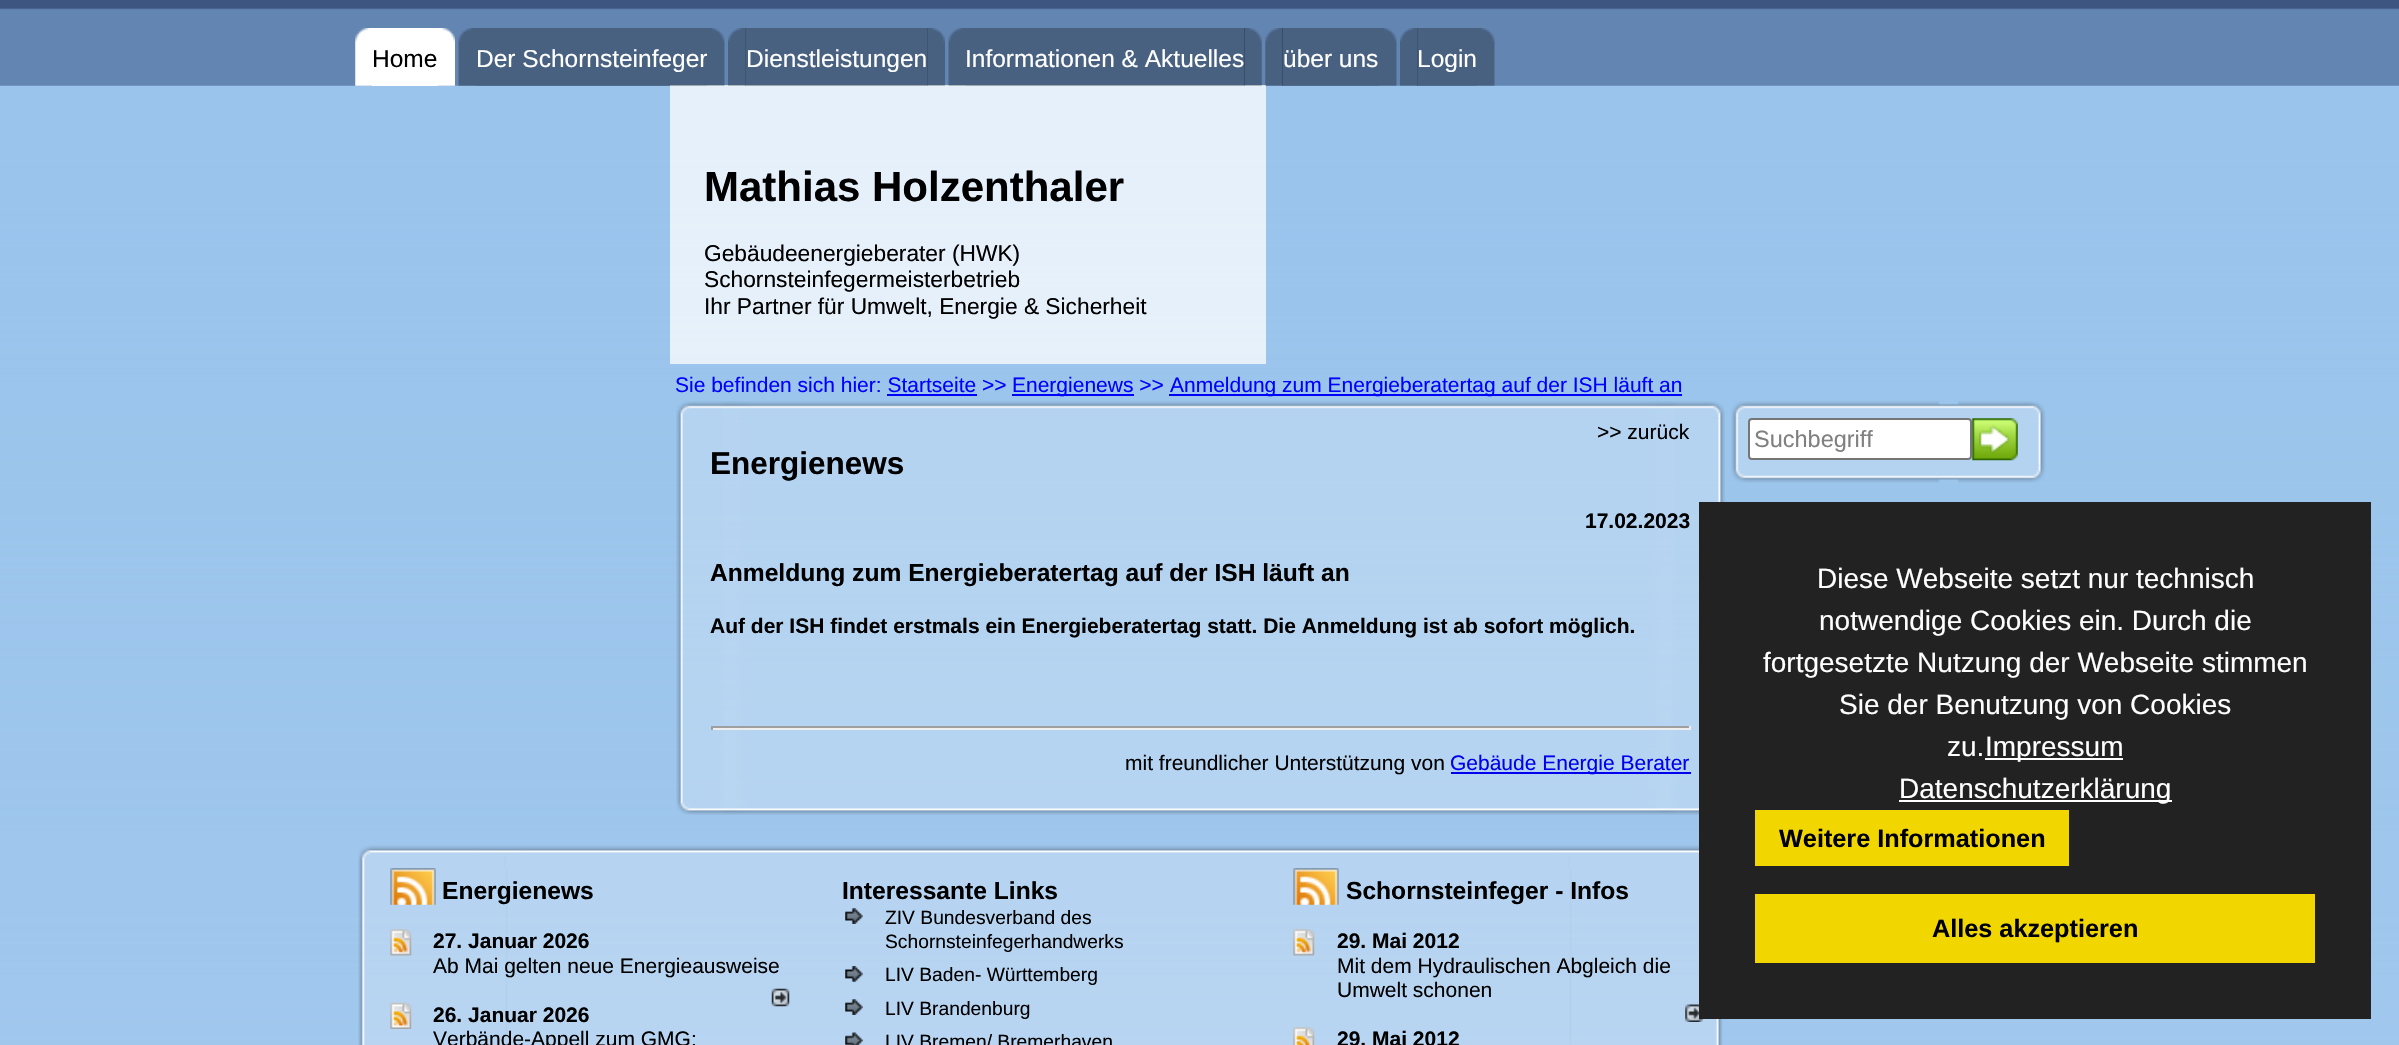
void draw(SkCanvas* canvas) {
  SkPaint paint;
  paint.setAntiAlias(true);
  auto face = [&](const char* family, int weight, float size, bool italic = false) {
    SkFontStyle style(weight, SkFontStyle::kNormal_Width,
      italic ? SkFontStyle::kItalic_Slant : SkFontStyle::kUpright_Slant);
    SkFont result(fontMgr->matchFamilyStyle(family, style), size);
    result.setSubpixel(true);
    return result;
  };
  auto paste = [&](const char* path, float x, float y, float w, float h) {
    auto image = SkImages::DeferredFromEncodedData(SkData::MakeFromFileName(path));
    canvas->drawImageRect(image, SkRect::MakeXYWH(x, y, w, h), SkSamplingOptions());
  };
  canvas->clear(0xffffffff);
  paste("img/1.png", 0, 85, 2399, 960);
  paste("img/2.png", 0, 0, 2399, 86);
  paste("img/3.png", 355, 28, 17, 58);
  paint.setColor(0xffffffff);
  canvas->drawRect(SkRect::MakeXYWH(372, 28, 66, 58), paint);
  paste("img/4.png", 438, 28, 17, 58);
  paste("img/5.png", 458, 28, 18, 58);
  paint.setColor(0xbfffffff);
  canvas->drawRect(SkRect::MakeXYWH(670, 85, 596, 279), paint);
  paint.setColor(0x45000000);
  canvas->drawRect(SkRect::MakeXYWH(476, 28, 231, 58), paint);
  paste("img/6.png", 707, 28, 18, 58);
  paste("img/7.png", 728, 28, 18, 58);
  canvas->drawRect(SkRect::MakeXYWH(745, 28, 183, 58), paint);
  paste("img/8.png", 927, 28, 18, 58);
  paste("img/9.png", 948, 28, 18, 58);
  canvas->drawRect(SkRect::MakeXYWH(966, 28, 279, 58), paint);
  paste("img/10.png", 1244, 28, 18, 58);
  paste("img/11.png", 1265, 28, 18, 58);
  canvas->drawRect(SkRect::MakeXYWH(1282, 28, 97, 58), paint);
  paste("img/12.png", 1379, 28, 18, 58);
  paste("img/13.png", 1400, 28, 18, 58);
  canvas->drawRect(SkRect::MakeXYWH(1417, 28, 60, 58), paint);
  paste("img/12.png", 1477, 28, 18, 58);
  {
    const struct { float x, y, w, h; SkColor color; } items[] = {
      {1012, 394, 122, 2, 0xff0000ff},
      {1169, 394, 513, 2, 0xff0000ff},
      {887, 394, 90, 2, 0xff0000ff},
    };
    for (auto [x, y, w, h, color] : items) {
      paint.setColor(color);
      canvas->drawRect(SkRect::MakeXYWH(x, y, w, h), paint);
    }
  }
  paste("img/14.png", 676, 401, 1049, 18);
  paste("img/15.png", 676, 418, 1049, 380);
  {
    const struct { float x, y, w, h; SkColor color; } items[] = {
      {711, 726, 980, 2, 0xff9f9f9f},
      {1689, 726, 2, 4, 0xffeeeeee},
      {711, 728, 980, 2, 0xffeeeeee},
      {711, 726, 2, 4, 0xff9f9f9f},
      {1451, 772, 240, 2, 0xff0000ee},
    };
    for (auto [x, y, w, h, color] : items) {
      paint.setColor(color);
      canvas->drawRect(SkRect::MakeXYWH(x, y, w, h), paint);
    }
  }
  paste("img/16.png", 676, 798, 1023, 17);
  paste("img/17.png", 1731, 401, 315, 18);
  paste("img/18.png", 1731, 418, 315, 48);
  paint.setColor(0xffffffff);
  canvas->drawRoundRect(SkRect::MakeXYWH(1749, 419, 222, 40), 3, 3, paint);
  paint.setStroke(true);
  paint.setStrokeWidth(2);
  paint.setColor(0xff767676);
  canvas->drawRoundRect(SkRect::MakeXYWH(1749, 419, 222, 40), 3, 3, paint);
  paste("img/19.png", 1972, 418, 46, 43);
  paste("img/20.png", 1731, 465, 315, 18);
  paste("img/21.png", 358, 845, 1341, 23);
  paste("img/22.png", 358, 868, 1365, 177);
  paste("img/23.png", 390, 868, 46, 37);
  paste("img/24.png", 390, 929, 22, 27);
  paste("img/25.png", 771, 988, 19, 19);
  paste("img/26.png", 390, 1002, 22, 27);
  paste("img/27.png", 845, 908, 18, 16);
  paste("img/28.png", 845, 966, 18, 16);
  paste("img/29.png", 845, 999, 18, 16);
  paste("img/30.png", 845, 1032, 18, 13);
  paste("img/23.png", 1293, 868, 46, 37);
  paste("img/24.png", 1293, 929, 22, 27);
  paste("img/31.png", 1685, 1004, 18, 18);
  paste("img/32.png", 1293, 1027, 22, 18);
  paint.setStroke(false);
  {
    const struct { float x, y, w, h; SkColor color; } items[] = {
      {1699, 502, 672, 517, 0xff222222},
      {1985, 758, 138, 2, 0xffffffff},
      {1899, 800, 273, 2, 0xffffffff},
      {1755, 810, 314, 56, 0xfff1d600},
      {1755, 894, 560, 69, 0xfff1d600},
    };
    for (auto [x, y, w, h, color] : items) {
      paint.setColor(color);
      canvas->drawRect(SkRect::MakeXYWH(x, y, w, h), paint);
    }
  }
  auto f0 = face("Liberation Sans", 400, 24.5f);
  paint.setColor(0xff000000);
  canvas->drawString("Home", 372, 67, f0, paint);
  paint.setColor(0xffffffff);
  {
    const struct { const char* s; float x, y; } items[] = {
      {"Der Schornsteinfeger", 476, 67},
      {"Dienstleistungen", 746, 67},
      {"Informationen & Aktuelles", 965, 67},
      {"über uns", 1283, 67},
      {"Login", 1417, 67},
    };
    for (auto [s, x, y] : items) {
      canvas->drawString(s, x, y, f0, paint);
    }
  }
  auto f1 = face("Liberation Sans", 700, 42);
  paint.setColor(0xff000000);
  canvas->drawString("Mathias Holzenthaler", 704, 201, f1, paint);
  auto f2 = face("Liberation Sans", 400, 22.75f);
  {
    const struct { const char* s; float x, y; } items[] = {
      {"Gebäudeenergieberater (HWK)", 704, 261},
      {"Schornsteinfegermeisterbetrieb", 704, 287},
      {"Ihr Partner für Umwelt, Energie & Sicherheit", 704, 314},
    };
    for (auto [s, x, y] : items) {
      canvas->drawString(s, x, y, f2, paint);
    }
  }
  auto f3 = face("Liberation Sans", 400, 21);
  paint.setColor(0xff0000ff);
  {
    const struct { const char* s; float x, y; } items[] = {
      {"Sie befinden sich hier: Startseite >>", 675, 392},
      {"Energienews >>", 1012, 392},
      {"Anmeldung zum Energieberatertag auf der ISH läuft an", 1170, 392},
    };
    for (auto [s, x, y] : items) {
      canvas->drawString(s, x, y, f3, paint);
    }
  }
  paint.setColor(0xff000000);
  canvas->drawString(">> zurück", 1597, 439, f3, paint);
  auto f4 = face("Liberation Sans", 700, 31.5f);
  canvas->drawString("Energienews", 710, 474, f4, paint);
  auto f5 = face("Liberation Sans", 700, 21);
  canvas->drawString("17.02.2023", 1585, 528, f5, paint);
  auto f6 = face("Liberation Sans", 700, 24.6f);
  canvas->drawString("Anmeldung zum Energieberatertag auf der ISH läuft an", 710, 581, f6, paint);
  canvas->drawString("Auf der ISH findet erstmals ein Energieberatertag statt. Die Anmeldung ist ab sofort möglich.", 710, 633, f5, paint);
  canvas->drawString("mit freundlicher Unterstützung von", 1125, 770, f3, paint);
  paint.setColor(0xff0000ee);
  canvas->drawString("Gebäude Energie Berater", 1450, 770, f3, paint);
  auto f7 = face("Liberation Sans", 400, 23.5f);
  paint.setColor(0xff808080);
  canvas->drawString("Suchbegriff", 1754, 447, f7, paint);
  paint.setColor(0xff000000);
  canvas->drawString("Energienews", 442, 899, f6, paint);
  canvas->drawString("27. Januar 2026", 433, 948, f5, paint);
  canvas->drawString("Ab Mai gelten neue Energieausweise", 433, 973, f3, paint);
  canvas->drawString("26. Januar 2026", 433, 1022, f5, paint);
  canvas->drawString("Verbände-Appell zum GMG:", 433, 1046, f3, paint);
  canvas->drawString("Interessante Links", 842, 899, f6, paint);
  auto f8 = face("Liberation Sans", 400, 19.25f);
  {
    const struct { const char* s; float x, y; } items[] = {
      {"ZIV Bundesverband des", 885, 924},
      {"Schornsteinfegerhandwerks", 885, 948},
      {"LIV Baden- Württemberg", 885, 981},
      {"LIV Brandenburg", 885, 1015},
      {"LIV Bremen/ Bremerhaven", 885, 1048},
    };
    for (auto [s, x, y] : items) {
      canvas->drawString(s, x, y, f8, paint);
    }
  }
  canvas->drawString("Schornsteinfeger - Infos", 1346, 899, f6, paint);
  canvas->drawString("29. Mai 2012", 1337, 948, f5, paint);
  canvas->drawString("Mit dem Hydraulischen Abgleich die", 1337, 973, f3, paint);
  canvas->drawString("Umwelt schonen", 1337, 997, f3, paint);
  canvas->drawString("29. Mai 2012", 1337, 1046, f5, paint);
  auto f9 = face("Liberation Sans", 400, 28);
  paint.setColor(0xffffffff);
  {
    const struct { const char* s; float x, y; } items[] = {
      {"Diese Webseite setzt nur technisch", 1817, 588},
      {"notwendige Cookies ein. Durch die", 1819, 630},
      {"fortgesetzte Nutzung der Webseite stimmen", 1763, 672},
      {"Sie der Benutzung von Cookies", 1839, 714},
      {"zu.", 1947, 756},
      {"Impressum", 1985, 756},
      {"Datenschutzerklärung", 1899, 798},
    };
    for (auto [s, x, y] : items) {
      canvas->drawString(s, x, y, f9, paint);
    }
  }
  auto f10 = face("Liberation Sans", 700, 25.25f);
  paint.setColor(0xff000000);
  canvas->drawString("Weitere Informationen", 1779, 847, f10, paint);
  canvas->drawString("Alles akzeptieren", 1932, 937, f10, paint);
}
